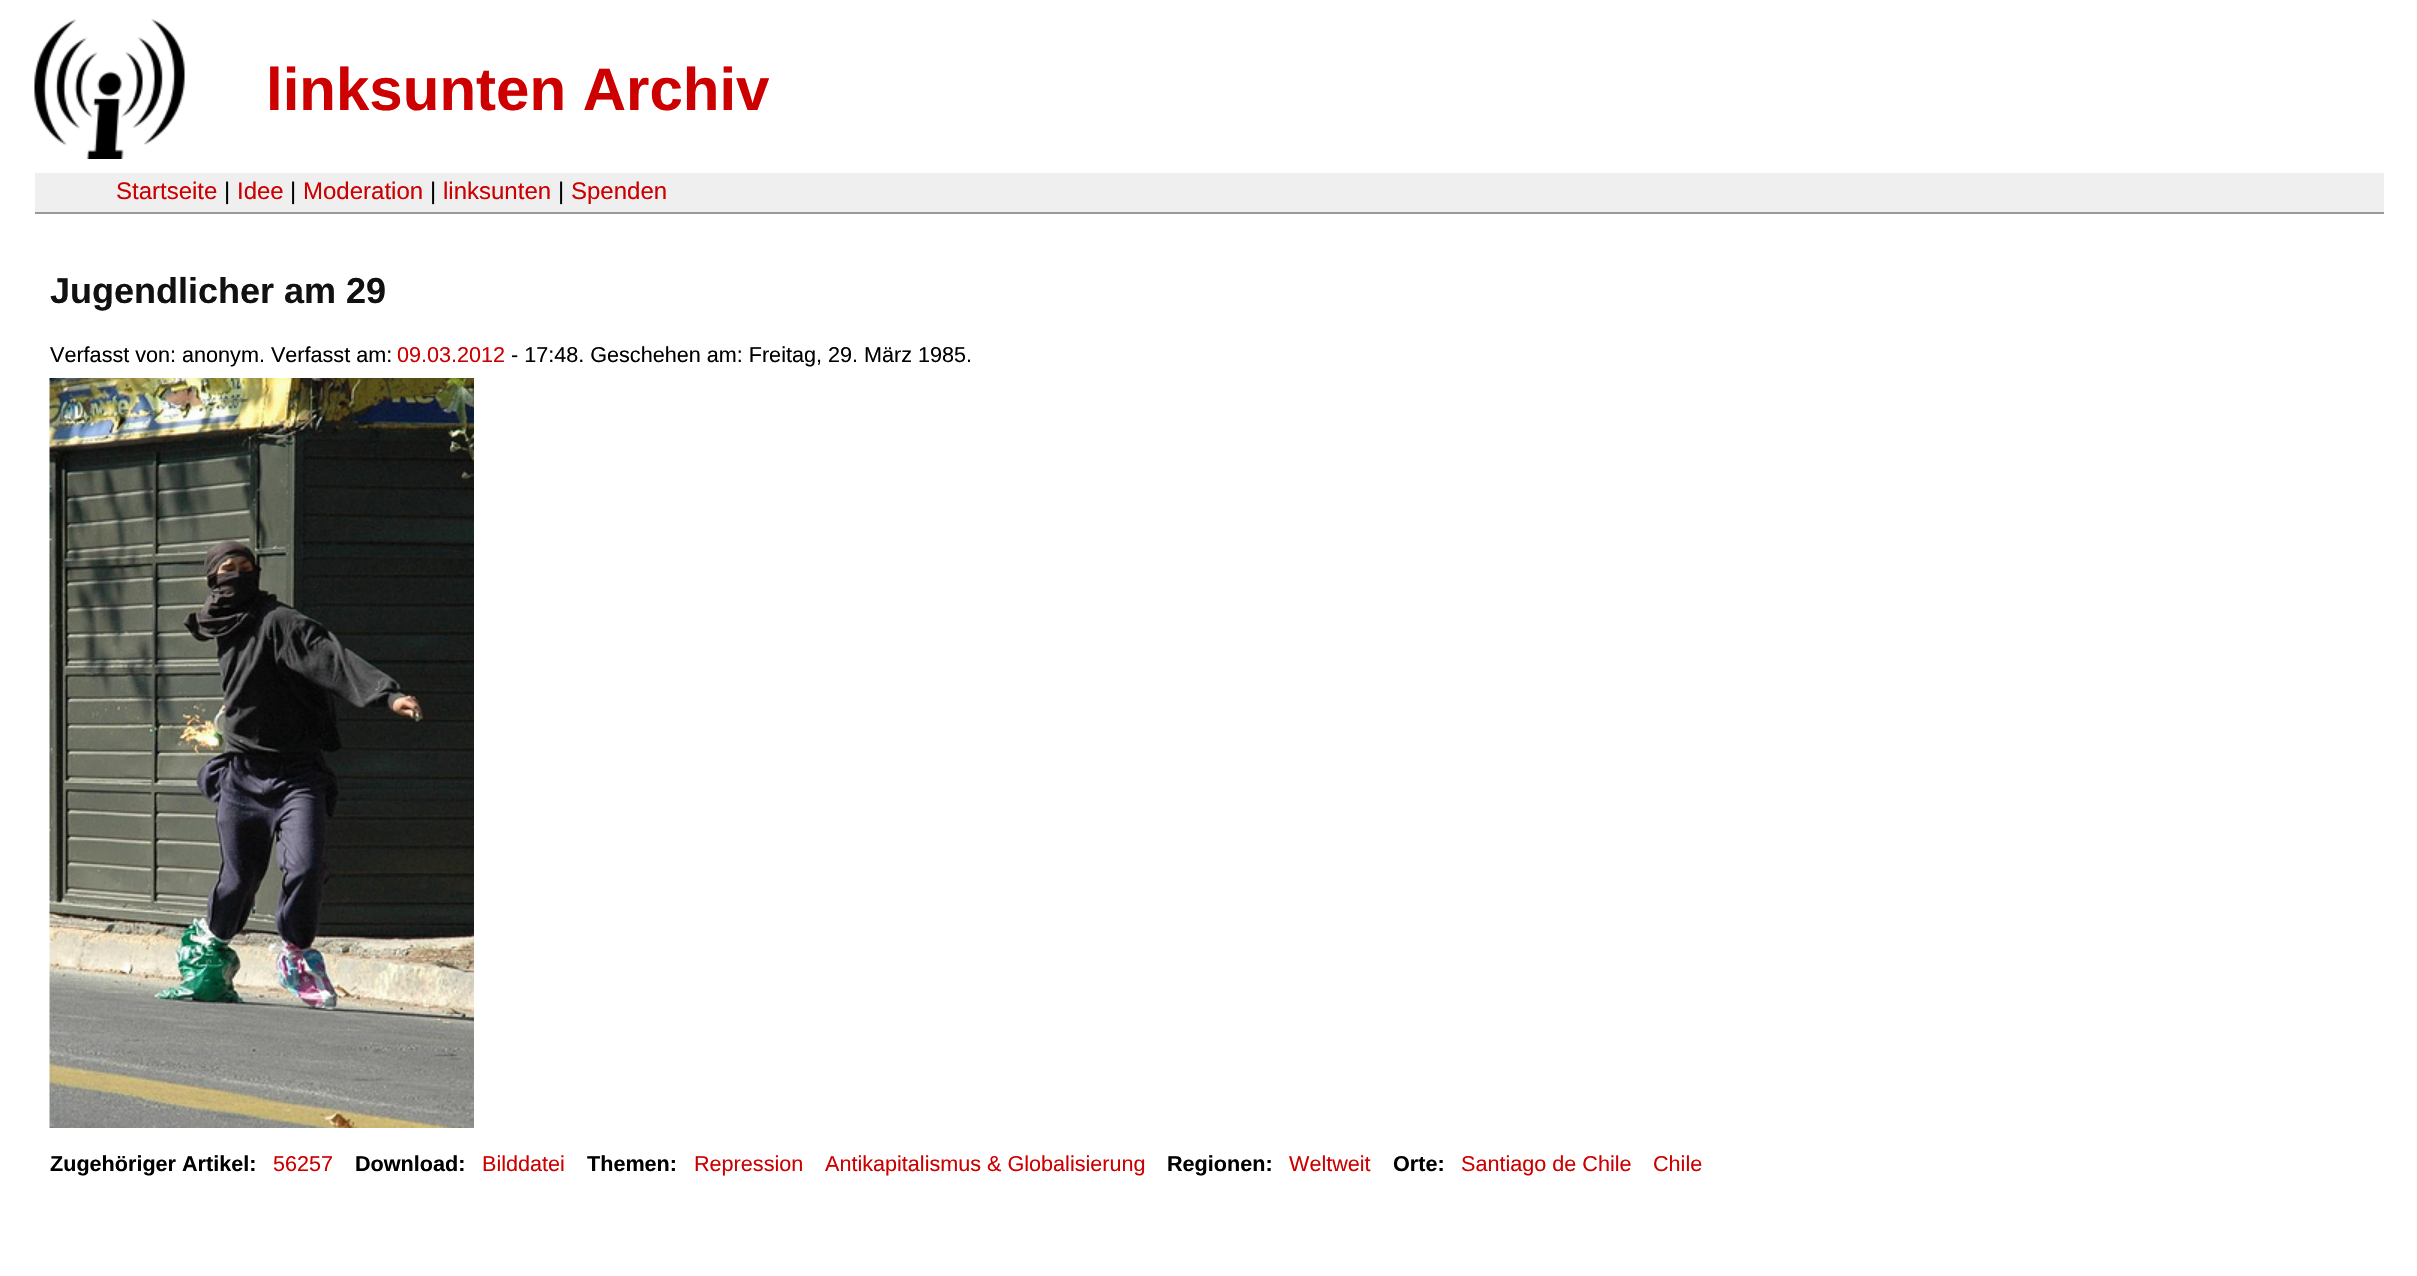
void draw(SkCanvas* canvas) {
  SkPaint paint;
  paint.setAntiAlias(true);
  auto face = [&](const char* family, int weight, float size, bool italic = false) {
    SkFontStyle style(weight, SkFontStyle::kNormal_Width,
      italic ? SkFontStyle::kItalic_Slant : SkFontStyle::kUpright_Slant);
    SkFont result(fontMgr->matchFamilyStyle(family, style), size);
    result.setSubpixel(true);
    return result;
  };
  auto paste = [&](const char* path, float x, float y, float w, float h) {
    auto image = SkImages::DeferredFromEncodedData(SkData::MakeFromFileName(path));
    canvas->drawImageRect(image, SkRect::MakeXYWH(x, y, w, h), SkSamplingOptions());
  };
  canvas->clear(0xffffffff);
  paste("img/1.png", 34, 19, 151, 140);
  paint.setColor(0xffefefef);
  canvas->drawRect(SkRect::MakeXYWH(35, 173, 2349, 39), paint);
  paint.setColor(0xff999999);
  canvas->drawRect(SkRect::MakeXYWH(35, 212, 2349, 2), paint);
  paste("img/2.png", 49, 378, 425, 750);
  auto f0 = face("Liberation Sans", 700, 60);
  paint.setColor(0xffcc0000);
  canvas->drawString("linksunten Archiv", 266, 110, f0, paint);
  auto f1 = face("Liberation Sans", 400, 24);
  canvas->drawString("Startseite", 116, 199, f1, paint);
  paint.setColor(0xff000000);
  canvas->drawString("|", 224, 199, f1, paint);
  paint.setColor(0xffcc0000);
  canvas->drawString("Idee", 237, 199, f1, paint);
  paint.setColor(0xff000000);
  canvas->drawString("|", 290, 199, f1, paint);
  paint.setColor(0xffcc0000);
  canvas->drawString("Moderation", 303, 199, f1, paint);
  paint.setColor(0xff000000);
  canvas->drawString("|", 430, 199, f1, paint);
  paint.setColor(0xffcc0000);
  canvas->drawString("linksunten", 443, 199, f1, paint);
  paint.setColor(0xff000000);
  canvas->drawString("|", 558, 199, f1, paint);
  paint.setColor(0xffcc0000);
  canvas->drawString("Spenden", 571, 199, f1, paint);
  auto f2 = face("Liberation Sans", 700, 36);
  paint.setColor(0xff111111);
  canvas->drawString("Jugendlicher am 29", 50, 303, f2, paint);
  auto f3 = face("Liberation Sans", 400, 21.6f);
  paint.setColor(0xff000000);
  canvas->drawString("Verfasst von: anonym. Verfasst am:", 50, 362, f3, paint);
  paint.setColor(0xffcc0000);
  canvas->drawString("09.03.2012", 397, 362, f3, paint);
  paint.setColor(0xff000000);
  canvas->drawString("- 17:48. Geschehen am: Freitag, 29. März 1985.", 511, 362, f3, paint);
  auto f4 = face("Liberation Sans", 700, 21.6f);
  canvas->drawString("Zugehöriger Artikel:", 50, 1171, f4, paint);
  paint.setColor(0xffcc0000);
  canvas->drawString("56257", 273, 1171, f3, paint);
  paint.setColor(0xff000000);
  canvas->drawString("Download:", 355, 1171, f4, paint);
  paint.setColor(0xffcc0000);
  canvas->drawString("Bilddatei", 482, 1171, f3, paint);
  paint.setColor(0xff000000);
  canvas->drawString("Themen:", 587, 1171, f4, paint);
  paint.setColor(0xffcc0000);
  canvas->drawString("Repression", 694, 1171, f3, paint);
  canvas->drawString("Antikapitalismus & Globalisierung", 825, 1171, f3, paint);
  paint.setColor(0xff000000);
  canvas->drawString("Regionen:", 1167, 1171, f4, paint);
  paint.setColor(0xffcc0000);
  canvas->drawString("Weltweit", 1289, 1171, f3, paint);
  paint.setColor(0xff000000);
  canvas->drawString("Orte:", 1393, 1171, f4, paint);
  paint.setColor(0xffcc0000);
  canvas->drawString("Santiago de Chile", 1461, 1171, f3, paint);
  canvas->drawString("Chile", 1653, 1171, f3, paint);
}
